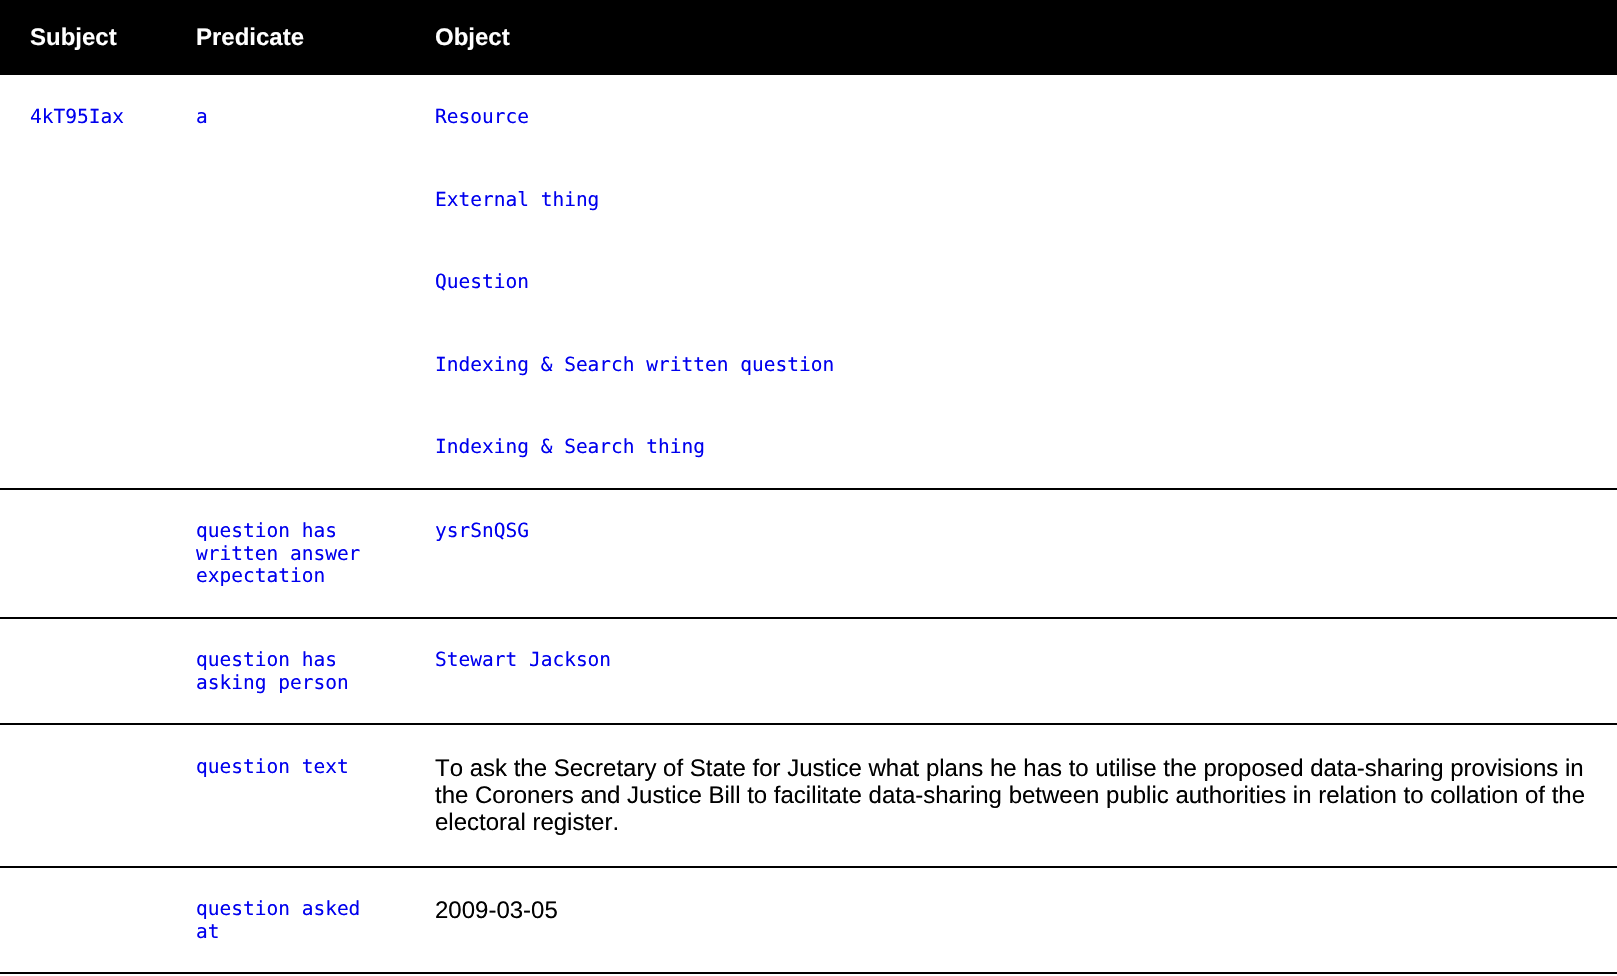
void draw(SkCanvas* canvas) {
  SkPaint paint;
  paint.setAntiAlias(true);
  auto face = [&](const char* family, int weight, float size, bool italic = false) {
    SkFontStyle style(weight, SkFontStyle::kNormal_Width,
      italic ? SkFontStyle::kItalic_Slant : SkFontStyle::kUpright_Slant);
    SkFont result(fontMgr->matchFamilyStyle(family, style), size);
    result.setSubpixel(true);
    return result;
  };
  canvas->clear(0xffffffff);
  {
    const struct { float x, y, w, h; SkColor color; } items[] = {
      {0, 0, 1617, 75, 0xff000000},
      {0, 488, 1617, 2, 0xff000000},
      {0, 617, 1617, 2, 0xff000000},
      {0, 723, 1617, 2, 0xff000000},
      {0, 866, 1617, 2, 0xff000000},
      {0, 972, 1617, 2, 0xff000000},
    };
    for (auto [x, y, w, h, color] : items) {
      paint.setColor(color);
      canvas->drawRect(SkRect::MakeXYWH(x, y, w, h), paint);
    }
  }
  auto f0 = face("Liberation Sans", 700, 24);
  paint.setColor(0xffffffff);
  {
    const struct { const char* s; float x, y; } items[] = {
      {"Subject", 30, 45},
      {"Predicate", 196, 45},
      {"Object", 435, 45},
    };
    for (auto [s, x, y] : items) {
      canvas->drawString(s, x, y, f0, paint);
    }
  }
  auto f1 = face("DejaVu Sans Mono", 400, 19.5f);
  paint.setColor(0xff0000ee);
  {
    const struct { const char* s; float x, y; } items[] = {
      {"4kT95Iax", 30, 123},
      {"a", 196, 123},
      {"Resource", 435, 123},
      {"External thing", 435, 206},
      {"Question", 435, 288},
      {"Indexing & Search written question", 435, 371},
      {"Indexing & Search thing", 435, 453},
      {"question has", 196, 537},
      {"written answer", 196, 560},
      {"expectation", 196, 582},
      {"ysrSnQSG", 435, 537},
      {"question has", 196, 666},
      {"asking person", 196, 689},
      {"Stewart Jackson", 435, 666},
      {"question text", 196, 773},
    };
    for (auto [s, x, y] : items) {
      canvas->drawString(s, x, y, f1, paint);
    }
  }
  auto f2 = face("Liberation Sans", 400, 24);
  paint.setColor(0xff000000);
  {
    const struct { const char* s; float x, y; } items[] = {
      {"To ask the Secretary of State for Justice what plans he has to utilise the proposed data-sharing provisions in", 435, 776},
      {"the Coroners and Justice Bill to facilitate data-sharing between public authorities in relation to collation of the", 435, 803},
      {"electoral register.", 435, 830},
    };
    for (auto [s, x, y] : items) {
      canvas->drawString(s, x, y, f2, paint);
    }
  }
  paint.setColor(0xff0000ee);
  canvas->drawString("question asked", 196, 915, f1, paint);
  canvas->drawString("at", 196, 938, f1, paint);
  paint.setColor(0xff000000);
  canvas->drawString("2009-03-05", 435, 918, f2, paint);
}
